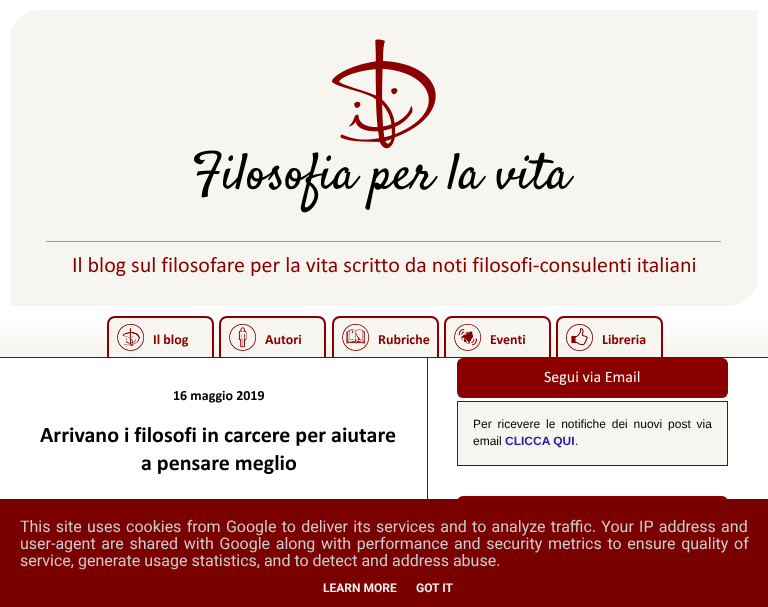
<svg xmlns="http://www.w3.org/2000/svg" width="768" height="607">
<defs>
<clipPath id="clip1"><rect y="316" width="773" height="41"/></clipPath>
</defs>
<rect width="100%" height="100%" fill="#fff"/>
<path d="M40 10h718v266c0 16.5-13.5 30-30 30h-718v-266c0-16.5 13.5-30 30-30z" fill="#f7f5ef"/>
<image x="194" y="39" width="380" height="174" href="media/1.png"/>
<rect x="46" y="241" width="676" height="1" fill="#9f9f9f"/>
<rect x="721" y="241" width="1" height="1" fill="#eee"/>
<text x="72" y="272" style="font-family:Calibri;font-size:22px;fill:#8a0000">Il blog sul filosofare per la vita scritto da noti filosofi-consulenti italiani</text>
<rect y="317" width="768" height="40" fill="#f7f5ef"/>
<image x="0" y="316" width="768" height="30" href="media/2.png"/>
<rect y="357" width="768" height="1" fill="#8a0000"/>
<path d="M115 316h91c4.5 0 8 3.5 8 8v33h-107v-33c0-4.5 3.5-8 8-8z" fill="#f7f5ef"/>
<g clip-path="url(#clip1)">
<path d="M115 317h91c4 0 7 3 7 7v41h-105v-41c0-4 3-7 7-7z" fill="none" stroke="#8a0000" stroke-width="2"/>
</g>
<image x="117" y="324" width="27" height="27" href="media/3.png"/>
<text x="153" y="344" style="font-family:Calibri;font-size:14px;font-weight:bold;fill:#8a0000">Il blog</text>
<path d="M227 316h91c4.5 0 8 3.5 8 8v33h-107v-33c0-4.5 3.5-8 8-8z" fill="#f7f5ef"/>
<g clip-path="url(#clip1)">
<path d="M227 317h91c4 0 7 3 7 7v41h-105v-41c0-4 3-7 7-7z" fill="none" stroke="#8a0000" stroke-width="2"/>
</g>
<image x="229" y="324" width="27" height="27" href="media/4.png"/>
<text x="265" y="344" style="font-family:Calibri;font-size:14px;font-weight:bold;fill:#8a0000">Autori</text>
<path d="M340 316h91c4.5 0 8 3.5 8 8v33h-107v-33c0-4.5 3.5-8 8-8z" fill="#f7f5ef"/>
<g clip-path="url(#clip1)">
<path d="M340 317h91c4 0 7 3 7 7v41h-105v-41c0-4 3-7 7-7z" fill="none" stroke="#8a0000" stroke-width="2"/>
</g>
<image x="342" y="324" width="27" height="27" href="media/5.png"/>
<text x="378" y="344" style="font-family:Calibri;font-size:14px;font-weight:bold;fill:#8a0000">Rubriche</text>
<path d="M452 316h91c4.5 0 8 3.5 8 8v33h-107v-33c0-4.5 3.5-8 8-8z" fill="#f7f5ef"/>
<g clip-path="url(#clip1)">
<path d="M452 317h91c4 0 7 3 7 7v41h-105v-41c0-4 3-7 7-7z" fill="none" stroke="#8a0000" stroke-width="2"/>
</g>
<image x="454" y="324" width="27" height="27" href="media/6.png"/>
<text x="490" y="344" style="font-family:Calibri;font-size:14px;font-weight:bold;fill:#8a0000">Eventi</text>
<path d="M564 316h91c4.5 0 8 3.5 8 8v33h-107v-33c0-4.5 3.5-8 8-8z" fill="#f7f5ef"/>
<g clip-path="url(#clip1)">
<path d="M564 317h91c4 0 7 3 7 7v41h-105v-41c0-4 3-7 7-7z" fill="none" stroke="#8a0000" stroke-width="2"/>
</g>
<image x="566" y="324" width="27" height="27" href="media/7.png"/>
<text x="602" y="344" style="font-family:Calibri;font-size:14px;font-weight:bold;fill:#8a0000">Libreria</text>
<rect x="427" y="358" width="1" height="141" fill="#8a0000"/>
<text x="173" y="400" style="font-family:Calibri;font-size:14px;font-weight:bold;fill:#000">16 maggio 2019</text>
<text x="40" y="442" style="font-family:Calibri;font-size:22px;font-weight:bold;fill:#000">Arrivano i filosofi in carcere per aiutare</text>
<text x="141" y="470" style="font-family:Calibri;font-size:22px;font-weight:bold;fill:#000">a pensare meglio</text>
<rect x="457" y="358" width="271" height="40" rx="6" fill="#8a0000"/>
<text x="544" y="382" style="font-family:Calibri;font-size:16px;fill:#f7f5ef">Segui via Email</text>
<rect x="457.5" y="401.5" width="270" height="64" fill="#f7f5ef" stroke="#8a0000"/>
<text x="473" y="428" word-spacing="2.5" style="font-family:Liberation Sans;font-size:12px;fill:#000">Per ricevere le notifiche dei nuovi post via</text>
<text x="473" y="445" style="font-family:Liberation Sans;font-size:12px;fill:#000">email</text>
<text x="505" y="445" style="font-family:Liberation Sans;font-size:12px;font-weight:bold;fill:#2323a5">CLICCA QUI</text>
<text x="575" y="445" style="font-family:Liberation Sans;font-size:12px;fill:#000">.</text>
<rect x="457" y="496" width="271" height="40" rx="6" fill="#8a0000"/>
<rect y="499" width="768" height="108" fill="#7a0000"/>
<text x="20" y="532" word-spacing="1.3" style="font-family:Roboto;font-size:16px;fill:#ccc">This site uses cookies from Google to deliver its services and to analyze traffic. Your IP address and</text>
<text x="20" y="549" word-spacing="1.75" style="font-family:Roboto;font-size:16px;fill:#ccc">user-agent are shared with Google along with performance and security metrics to ensure quality of</text>
<text x="20" y="566" style="font-family:Roboto;font-size:16px;fill:#ccc">service, generate usage statistics, and to detect and address abuse.</text>
<text x="323" y="592" style="font-family:Roboto;font-size:12px;font-weight:bold;fill:#eee">LEARN MORE</text>
<text x="416" y="592" style="font-family:Roboto;font-size:12px;font-weight:bold;fill:#eee">GOT IT</text>
</svg>
